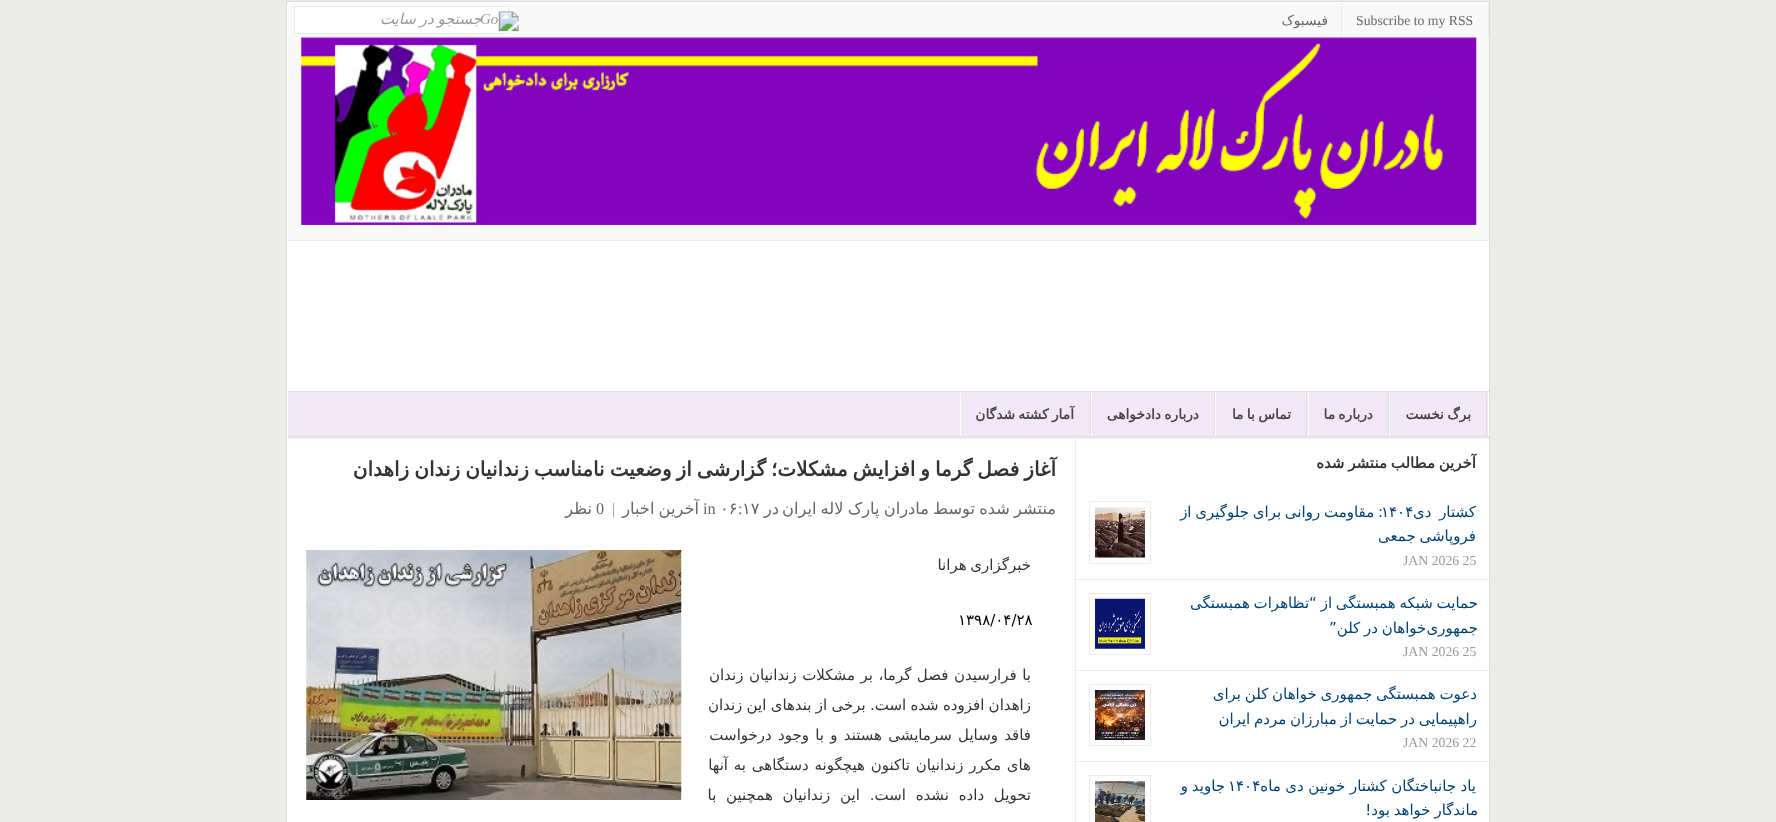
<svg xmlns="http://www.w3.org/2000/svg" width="1776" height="822">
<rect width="100%" height="100%" fill="#ebece7"/>
<rect x="286.5" y="1.5" width="1203" height="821" fill="#fff" stroke="#ddd"/>
<rect x="288" y="3" width="1201" height="237" fill="#f9f9f9"/>
<rect x="288" y="240" width="1201" height="1" fill="#ecede8"/>
<rect x="1488" y="3" width="1" height="35" fill="#ecede8"/>
<text x="1356" y="25" style="font-family:Liberation Serif;font-size:13.75px;fill:#666">Subscribe to my RSS</text>
<rect x="1341" y="3" width="1" height="35" fill="#ecede8"/>
<text x="1328" y="25" style="font-family:DejaVu Sans;font-size:13.75px;direction:rtl;fill:#666">فیسبوک</text>
<image x="301" y="37" width="1176" height="188" href="media/1.png"/>
<rect x="294.5" y="6.5" width="214" height="27" fill="#fff" stroke="#ecede8"/>
<text x="482" y="24" word-spacing="-1" style="font-family:DejaVu Sans;font-size:15px;font-style:italic;direction:rtl;fill:#999">جستجو در سایت</text>
<image x="480" y="11" width="39" height="21" href="media/2.png"/>
<rect x="288" y="392" width="1201" height="46" fill="#f0e9f5"/>
<rect x="288" y="391" width="1201" height="1" fill="#dfdfdf"/>
<rect x="288" y="436" width="1201" height="1" fill="#dfdfdf"/>
<rect x="1488" y="393" width="1" height="43" fill="#fff"/>
<rect x="1486" y="393" width="1" height="43" fill="#dfdfdf"/>
<rect x="1389" y="393" width="1" height="43" fill="#fff"/>
<text x="1471" y="419" word-spacing="-1" style="font-family:DejaVu Sans;font-size:13.75px;font-weight:bold;direction:rtl;fill:#444">برگ نخست</text>
<rect x="1388" y="393" width="1" height="43" fill="#dfdfdf"/>
<rect x="1308" y="393" width="1" height="43" fill="#fff"/>
<text x="1373" y="419" word-spacing="-1" style="font-family:DejaVu Sans;font-size:13.75px;font-weight:bold;direction:rtl;fill:#444">درباره ما</text>
<rect x="1306" y="393" width="1" height="43" fill="#dfdfdf"/>
<rect x="1215" y="393" width="1" height="43" fill="#fff"/>
<text x="1291" y="419" word-spacing="-1" style="font-family:DejaVu Sans;font-size:13.75px;font-weight:bold;direction:rtl;fill:#444">تماس با ما</text>
<rect x="1214" y="393" width="1" height="43" fill="#dfdfdf"/>
<rect x="1091" y="393" width="1" height="43" fill="#fff"/>
<text x="1199" y="419" word-spacing="-1" style="font-family:DejaVu Sans;font-size:13.75px;font-weight:bold;direction:rtl;fill:#444">درباره دادخواهی</text>
<rect x="1090" y="393" width="1" height="43" fill="#dfdfdf"/>
<rect x="960" y="393" width="1" height="43" fill="#fff"/>
<text x="1074" y="419" word-spacing="-1" style="font-family:DejaVu Sans;font-size:13.75px;font-weight:bold;direction:rtl;fill:#444">آمار کشته شدگان</text>
<rect x="288" y="438" width="1201" height="1" fill="#ecede8"/>
<text x="1476" y="468" word-spacing="-1" style="font-family:DejaVu Sans;font-size:15px;font-weight:bold;direction:rtl;fill:#333">آخرین مطالب منتشر شده</text>
<text x="1476" y="517" word-spacing="3" style="font-family:DejaVu Sans;font-size:15px;direction:rtl;fill:#004276">کشتار دی</text>
<text x="1383" y="517" word-spacing="-1" style="font-family:DejaVu Sans;font-size:15px;direction:rtl;fill:#004276">: مقاومت روانی برای جلوگیری از</text>
<text x="1381" y="517" style="font-family:DejaVu Sans;font-size:15px;fill:#004276">۱۴۰۴</text>
<text x="1476" y="541" word-spacing="-1" style="font-family:DejaVu Sans;font-size:15px;direction:rtl;fill:#004276">فروپاشی جمعی</text>
<text x="1403" y="565" style="font-family:Liberation Serif;font-size:13.75px;fill:#999">JAN 2026 25</text>
<rect x="1089.5" y="501.5" width="61" height="62" fill="none" stroke="#ecede8"/>
<image x="1095" y="507" width="50" height="51" href="media/3.png"/>
<rect x="1076" y="579" width="413" height="1" fill="#ecede8"/>
<text x="1478" y="608" word-spacing="-1" style="font-family:DejaVu Sans;font-size:15px;direction:rtl;fill:#004276">حمایت شبکه همبستگی از “تظاهرات همبستگی</text>
<text x="1478" y="633" word-spacing="-1" style="font-family:DejaVu Sans;font-size:15px;direction:rtl;fill:#004276">جمهوری‌خواهان در کلن”</text>
<text x="1403" y="656" style="font-family:Liberation Serif;font-size:13.75px;fill:#999">JAN 2026 25</text>
<rect x="1089.5" y="593.5" width="61" height="61" fill="none" stroke="#ecede8"/>
<image x="1095" y="598" width="50" height="51" href="media/4.png"/>
<rect x="1076" y="670" width="413" height="1" fill="#ecede8"/>
<text x="1477" y="699" word-spacing="-1" style="font-family:DejaVu Sans;font-size:15px;direction:rtl;fill:#004276">دعوت همبستگی جمهوری خواهان کلن برای</text>
<text x="1477" y="724" word-spacing="-1" style="font-family:DejaVu Sans;font-size:15px;direction:rtl;fill:#004276">راهپیمایی در حمایت از مبارزان مردم ایران</text>
<text x="1403" y="747" style="font-family:Liberation Serif;font-size:13.75px;fill:#999">JAN 2026 22</text>
<rect x="1089.5" y="684.5" width="61" height="61" fill="none" stroke="#ecede8"/>
<image x="1095" y="690" width="50" height="50" href="media/5.png"/>
<rect x="1076" y="761" width="413" height="1" fill="#ecede8"/>
<text x="1476" y="791" word-spacing="-0.25" style="font-family:DejaVu Sans;font-size:15px;direction:rtl;fill:#004276">یاد جانباختگان کشتار خونین دی ماه</text>
<text x="1228" y="791" style="font-family:DejaVu Sans;font-size:15px;fill:#004276">۱۴۰۴</text>
<text x="1225" y="791" word-spacing="-1" style="font-family:DejaVu Sans;font-size:15px;direction:rtl;fill:#004276">جاوید و</text>
<text x="1478" y="815" word-spacing="-1" style="font-family:DejaVu Sans;font-size:15px;direction:rtl;fill:#004276">ماندگار خواهد بود!</text>
<rect x="1089.5" y="775.5" width="61" height="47" fill="none" stroke="#ecede8"/>
<image x="1095" y="781" width="50" height="41" href="media/6.png"/>
<rect x="1075" y="439" width="1" height="383" fill="#ecede8"/>
<text x="1056" y="476" word-spacing="-1.4" style="font-family:DejaVu Sans;font-size:20px;font-weight:bold;direction:rtl;fill:#333">آغاز فصل گرما و افزایش مشکلات؛ گزارشی از وضعیت نامناسب زندانیان زندان زاهدان</text>
<text x="1056" y="514" word-spacing="-1" style="font-family:DejaVu Sans;font-size:16.25px;direction:rtl;fill:#666">منتشر شده توسط مادران پارک لاله ایران</text>
<text x="779" y="514" style="font-family:DejaVu Sans;font-size:16.25px;direction:rtl;fill:#666">در</text>
<text x="742" y="514" style="font-family:DejaVu Sans;font-size:16.25px;fill:#666">۱۷</text>
<text x="738" y="514" style="font-family:Liberation Serif;font-size:16.25px;fill:#666">:</text>
<text x="720" y="514" style="font-family:DejaVu Sans;font-size:16.25px;fill:#666">۰۶</text>
<text x="703" y="514" style="font-family:Liberation Serif;font-size:16.25px;fill:#666">in</text>
<text x="699" y="514" word-spacing="-1" style="font-family:DejaVu Sans;font-size:16.25px;direction:rtl;fill:#666">آخرین اخبار</text>
<text x="612" y="514" style="font-family:Liberation Serif;font-size:16.25px;fill:#999">|</text>
<text x="596" y="514" style="font-family:Liberation Serif;font-size:16.25px;fill:#666">0</text>
<text x="592" y="514" style="font-family:DejaVu Sans;font-size:16.25px;direction:rtl;fill:#666">نظر</text>
<text x="1031" y="570" word-spacing="-1" style="font-family:DejaVu Sans;font-size:15px;direction:rtl;fill:#333">خبرگزاری هرانا</text>
<text x="958" y="625" style="font-family:DejaVu Sans;font-size:15px;fill:#000">۱۳۹۸/۰۴/۲۸</text>
<text x="1031" y="680" word-spacing="0.75" style="font-family:DejaVu Sans;font-size:15px;direction:rtl;fill:#333">با فرارسیدن فصل گرما، بر مشکلات زندانیان زندان</text>
<text x="1031" y="710" word-spacing="-0.5" style="font-family:DejaVu Sans;font-size:15px;direction:rtl;fill:#333">زاهدان افزوده شده است. برخی از بندهای این زندان</text>
<text x="1031" y="740" word-spacing="1.5" style="font-family:DejaVu Sans;font-size:15px;direction:rtl;fill:#333">فاقد وسایل سرمایشی هستند و با وجود درخواست</text>
<text x="1031" y="770" word-spacing="1" style="font-family:DejaVu Sans;font-size:15px;direction:rtl;fill:#333">های مکرر زندانیان تاکنون هیچگونه دستگاهی به آنها</text>
<text x="1031" y="800" word-spacing="5" style="font-family:DejaVu Sans;font-size:15px;direction:rtl;fill:#333">تحویل داده نشده است. این زندانیان همچنین با</text>
<image x="306" y="550" width="376" height="250" href="media/7.png"/>
</svg>
